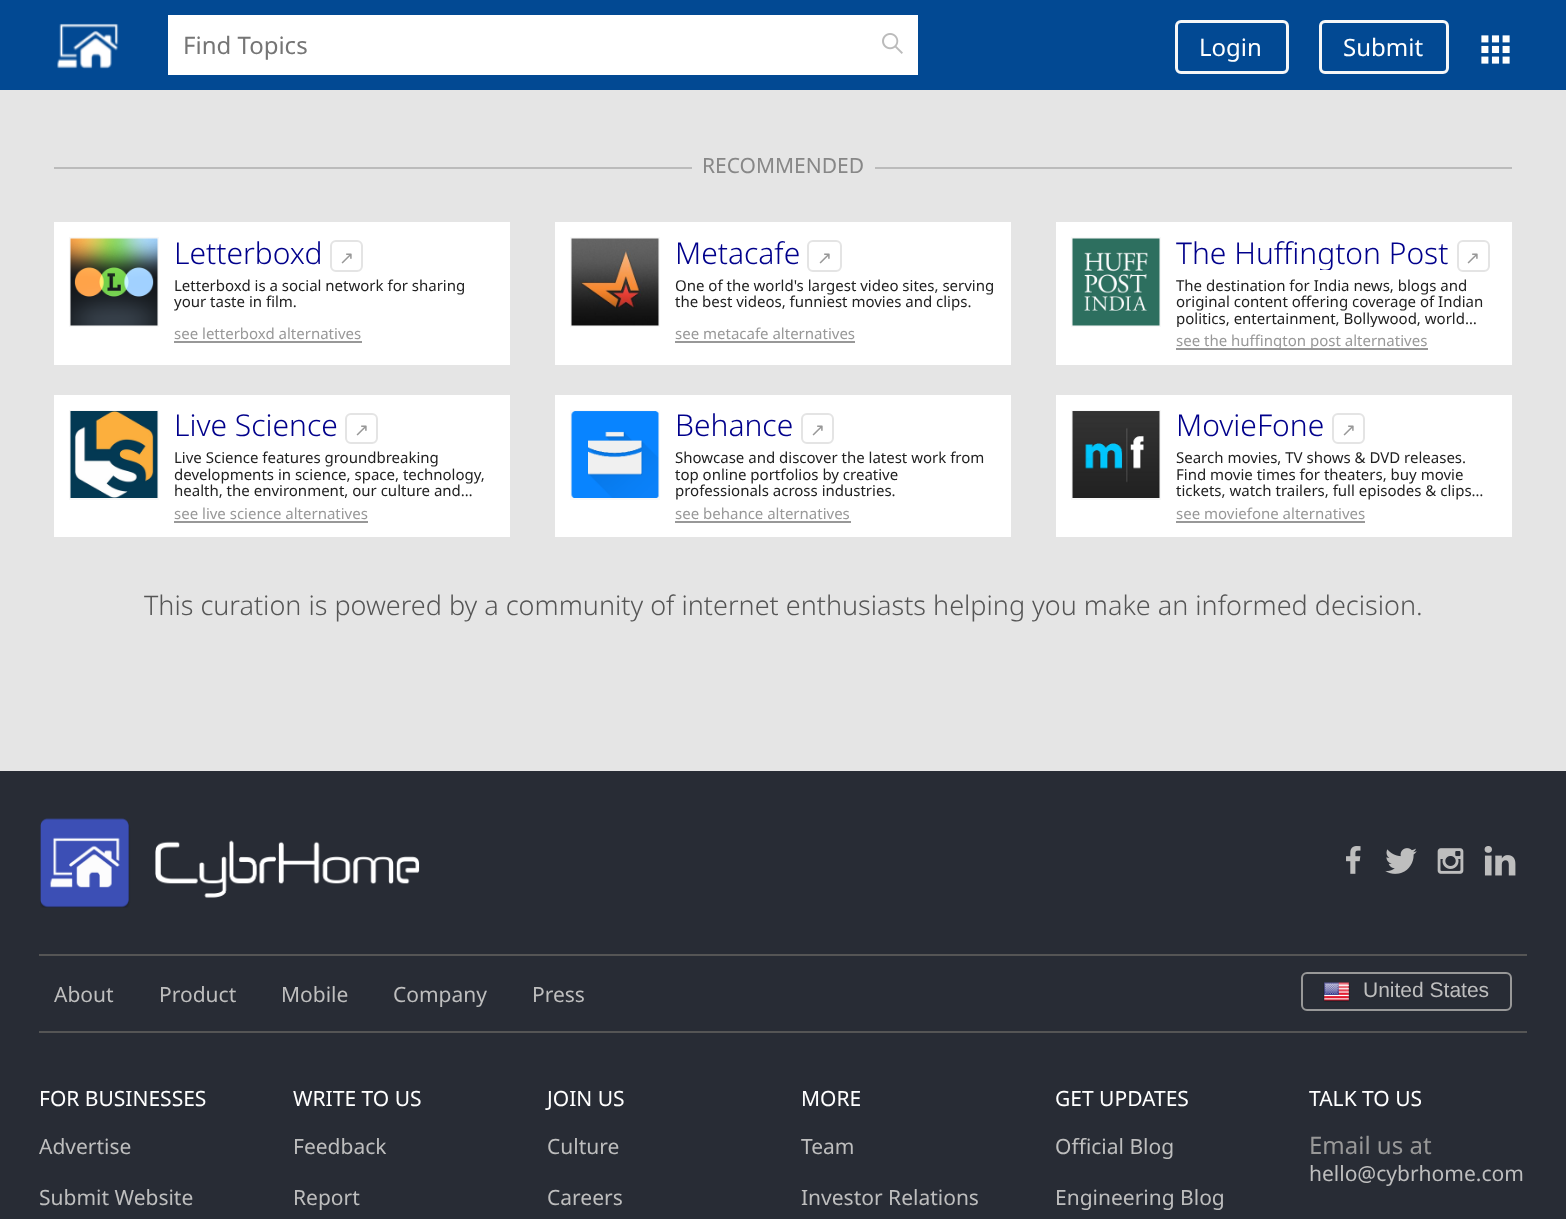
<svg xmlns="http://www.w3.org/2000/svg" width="1566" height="1219">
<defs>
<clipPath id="clip1"><rect x="1176" y="237" width="273" height="33"/></clipPath>
<clipPath id="clip2"><rect x="1176" y="278" width="321" height="49"/></clipPath>
</defs>
<rect width="100%" height="100%" fill="#e5e5e5"/>
<rect width="1566" height="90" fill="#024993"/>
<image x="57" y="23" width="62" height="46" href="media/1.png"/>
<rect x="168" y="15" width="750" height="60" fill="#fff"/>
<text x="183" y="54" style="font-family:Noto Sans;font-size:24px;fill:#757575">Find Topics</text>
<image x="882" y="33" width="21" height="21" href="media/2.png"/>
<rect x="1176.5" y="21.5" width="111" height="51" rx="4.5" fill="none" stroke="#f7f7f7" stroke-width="3"/>
<text x="1199" y="56" style="font-family:Noto Sans;font-size:24px;fill:#fff">Login</text>
<rect x="1320.5" y="21.5" width="127" height="51" rx="4.5" fill="none" stroke="#f7f7f7" stroke-width="3"/>
<text x="1343" y="56" style="font-family:Noto Sans;font-size:24px;fill:#fff">Submit</text>
<image x="1481" y="35" width="29" height="29" href="media/3.png"/>
<rect x="54" y="167" width="638" height="2" fill="#bbb"/>
<text x="702" y="173" style="font-family:Noto Sans;font-size:21px;fill:#878787">RECOMMENDED</text>
<rect x="875" y="167" width="637" height="2" fill="#bbb"/>
<rect x="54" y="222" width="456" height="143" fill="#fff"/>
<rect x="70" y="238" width="88" height="88" fill="none" stroke="#f8f8f8" stroke-width="2"/>
<image x="70" y="238" width="88" height="88" href="media/4.png"/>
<text x="174" y="264" style="font-family:Noto Sans;font-size:30px;font-weight:300;fill:#00008b">Letterboxd</text>
<rect x="331" y="241" width="31" height="30" rx="5" fill="none" stroke="#e4e4e4" stroke-width="2"/>
<text x="339" y="264" style="font-family:DejaVu Sans;font-size:18px;fill:#989898">↗</text>
<text x="174" y="291" style="font-family:Noto Sans;font-size:15px;fill:#212121">Letterboxd is a social network for sharing</text>
<text x="174" y="307" style="font-family:Noto Sans;font-size:15px;fill:#212121">your taste in film.</text>
<text x="174" y="339" style="font-family:Noto Sans;font-size:15px;fill:#989898">see letterboxd alternatives</text>
<rect x="174" y="341" width="188" height="2" fill="#989898"/>
<rect x="555" y="222" width="456" height="143" fill="#fff"/>
<rect x="571" y="238" width="88" height="88" fill="none" stroke="#f8f8f8" stroke-width="2"/>
<image x="571" y="238" width="88" height="88" href="media/5.png"/>
<text x="675" y="264" style="font-family:Noto Sans;font-size:30px;font-weight:300;fill:#00008b">Metacafe</text>
<rect x="808" y="241" width="33" height="30" rx="5" fill="none" stroke="#e4e4e4" stroke-width="2"/>
<text x="817" y="264" style="font-family:DejaVu Sans;font-size:18px;fill:#989898">↗</text>
<text x="675" y="291" style="font-family:Noto Sans;font-size:15px;fill:#212121">One of the world's largest video sites, serving</text>
<text x="675" y="307" style="font-family:Noto Sans;font-size:15px;fill:#212121">the best videos, funniest movies and clips.</text>
<text x="675" y="339" style="font-family:Noto Sans;font-size:15px;fill:#989898">see metacafe alternatives</text>
<rect x="675" y="341" width="180" height="2" fill="#989898"/>
<rect x="1056" y="222" width="456" height="143" fill="#fff"/>
<rect x="1072" y="238" width="88" height="88" fill="none" stroke="#f8f8f8" stroke-width="2"/>
<image x="1072" y="238" width="88" height="88" href="media/6.png"/>
<g clip-path="url(#clip1)">
<text x="1176" y="264" style="font-family:Noto Sans;font-size:30px;font-weight:300;fill:#00008b">The Huffington Post</text>
</g>
<rect x="1458" y="241" width="31" height="30" rx="5" fill="none" stroke="#e4e4e4" stroke-width="2"/>
<text x="1465" y="264" style="font-family:DejaVu Sans;font-size:18px;fill:#989898">↗</text>
<text x="1176" y="291" style="font-family:Noto Sans;font-size:15px;fill:#212121">The destination for India news, blogs and</text>
<text x="1176" y="307" style="font-family:Noto Sans;font-size:15px;fill:#212121">original content offering coverage of Indian</text>
<g clip-path="url(#clip2)">
<text x="1176" y="324" style="font-family:Noto Sans;font-size:15px;fill:#212121">politics, entertainment, Bollywood, world…</text>
</g>
<rect x="1176" y="348" width="252" height="2" fill="#989898"/>
<text x="1176" y="346" style="font-family:Noto Sans;font-size:15px;fill:#989898">see the huffington post alternatives</text>
<rect x="54" y="395" width="456" height="142" fill="#fff"/>
<rect x="70" y="411" width="88" height="88" fill="none" stroke="#f8f8f8" stroke-width="2"/>
<image x="70" y="411" width="88" height="87" href="media/7.png"/>
<text x="174" y="436" style="font-family:Noto Sans;font-size:30px;font-weight:300;fill:#00008b">Live Science</text>
<rect x="346" y="414" width="31" height="29" rx="5" fill="none" stroke="#e4e4e4" stroke-width="2"/>
<text x="354" y="436" style="font-family:DejaVu Sans;font-size:18px;fill:#989898">↗</text>
<text x="174" y="463" style="font-family:Noto Sans;font-size:15px;fill:#212121">Live Science features groundbreaking</text>
<text x="174" y="480" style="font-family:Noto Sans;font-size:15px;fill:#212121">developments in science, space, technology,</text>
<text x="174" y="496" style="font-family:Noto Sans;font-size:15px;fill:#212121">health, the environment, our culture and…</text>
<text x="174" y="519" style="font-family:Noto Sans;font-size:15px;fill:#989898">see live science alternatives</text>
<rect x="174" y="521" width="194" height="2" fill="#989898"/>
<rect x="555" y="395" width="456" height="142" fill="#fff"/>
<rect x="571" y="411" width="88" height="88" fill="none" stroke="#f8f8f8" stroke-width="2"/>
<image x="571" y="411" width="88" height="87" href="media/8.png"/>
<text x="675" y="436" style="font-family:Noto Sans;font-size:30px;font-weight:300;fill:#00008b">Behance</text>
<rect x="802" y="414" width="31" height="29" rx="5" fill="none" stroke="#e4e4e4" stroke-width="2"/>
<text x="810" y="436" style="font-family:DejaVu Sans;font-size:18px;fill:#989898">↗</text>
<text x="675" y="463" style="font-family:Noto Sans;font-size:15px;fill:#212121">Showcase and discover the latest work from</text>
<text x="675" y="480" style="font-family:Noto Sans;font-size:15px;fill:#212121">top online portfolios by creative</text>
<text x="675" y="496" style="font-family:Noto Sans;font-size:15px;fill:#212121">professionals across industries.</text>
<text x="675" y="519" style="font-family:Noto Sans;font-size:15px;fill:#989898">see behance alternatives</text>
<rect x="675" y="521" width="176" height="2" fill="#989898"/>
<rect x="1056" y="395" width="456" height="142" fill="#fff"/>
<rect x="1072" y="411" width="88" height="88" fill="none" stroke="#f8f8f8" stroke-width="2"/>
<image x="1072" y="411" width="88" height="87" href="media/9.png"/>
<text x="1176" y="436" style="font-family:Noto Sans;font-size:30px;font-weight:300;fill:#00008b">MovieFone</text>
<rect x="1333" y="414" width="31" height="29" rx="5" fill="none" stroke="#e4e4e4" stroke-width="2"/>
<text x="1341" y="436" style="font-family:DejaVu Sans;font-size:18px;fill:#989898">↗</text>
<text x="1176" y="463" style="font-family:Noto Sans;font-size:15px;fill:#212121">Search movies, TV shows &amp; DVD releases.</text>
<text x="1176" y="480" style="font-family:Noto Sans;font-size:15px;fill:#212121">Find movie times for theaters, buy movie</text>
<text x="1176" y="496" style="font-family:Noto Sans;font-size:15px;fill:#212121">tickets, watch trailers, full episodes &amp; clips…</text>
<text x="1176" y="519" style="font-family:Noto Sans;font-size:15px;fill:#989898">see moviefone alternatives</text>
<rect x="1176" y="521" width="189" height="2" fill="#989898"/>
<text x="144" y="615" style="font-family:Noto Sans;font-size:27px;font-weight:300;fill:#555">This curation is powered by a community of internet enthusiasts helping you make an informed decision.</text>
<rect y="771" width="1566" height="448" fill="#282c35"/>
<image x="40" y="818" width="380" height="90" href="media/10.png"/>
<image x="1346" y="846" width="15" height="28" href="media/11.png"/>
<image x="1385" y="848" width="32" height="26" href="media/12.png"/>
<image x="1437" y="848" width="27" height="26" href="media/13.png"/>
<image x="1484" y="846" width="32" height="30" href="media/14.png"/>
<rect x="39" y="954" width="1488" height="2" fill="#555"/>
<text x="54" y="1002" style="font-family:Noto Sans;font-size:21px;fill:#bebebe">About</text>
<text x="159" y="1002" style="font-family:Noto Sans;font-size:21px;fill:#bebebe">Product</text>
<text x="281" y="1002" style="font-family:Noto Sans;font-size:21px;fill:#bebebe">Mobile</text>
<text x="393" y="1002" style="font-family:Noto Sans;font-size:21px;fill:#bebebe">Company</text>
<text x="532" y="1002" style="font-family:Noto Sans;font-size:21px;fill:#bebebe">Press</text>
<rect x="1302" y="973" width="209" height="37" rx="5" fill="none" stroke="#989898" stroke-width="2"/>
<image x="1323" y="982" width="27" height="20" href="media/15.png"/>
<text x="1363" y="997" style="font-family:Liberation Sans;font-size:21px;fill:#bebebe">United States</text>
<rect x="39" y="1031" width="1488" height="2" fill="#555"/>
<text x="39" y="1106" style="font-family:Noto Sans;font-size:21px;fill:#fff">FOR BUSINESSES</text>
<text x="39" y="1154" style="font-family:Noto Sans;font-size:21px;fill:#bebebe">Advertise</text>
<text x="39" y="1205" style="font-family:Noto Sans;font-size:21px;fill:#bebebe">Submit Website</text>
<text x="293" y="1106" style="font-family:Noto Sans;font-size:21px;fill:#fff">WRITE TO US</text>
<text x="293" y="1154" style="font-family:Noto Sans;font-size:21px;fill:#bebebe">Feedback</text>
<text x="293" y="1205" style="font-family:Noto Sans;font-size:21px;fill:#bebebe">Report</text>
<text x="547" y="1106" style="font-family:Noto Sans;font-size:21px;fill:#fff">JOIN US</text>
<text x="547" y="1154" style="font-family:Noto Sans;font-size:21px;fill:#bebebe">Culture</text>
<text x="547" y="1205" style="font-family:Noto Sans;font-size:21px;fill:#bebebe">Careers</text>
<text x="801" y="1106" style="font-family:Noto Sans;font-size:21px;fill:#fff">MORE</text>
<text x="801" y="1154" style="font-family:Noto Sans;font-size:21px;fill:#bebebe">Team</text>
<text x="801" y="1205" style="font-family:Noto Sans;font-size:21px;fill:#bebebe">Investor Relations</text>
<text x="1055" y="1106" style="font-family:Noto Sans;font-size:21px;fill:#fff">GET UPDATES</text>
<text x="1055" y="1154" style="font-family:Noto Sans;font-size:21px;fill:#bebebe">Official Blog</text>
<text x="1055" y="1205" style="font-family:Noto Sans;font-size:21px;fill:#bebebe">Engineering Blog</text>
<text x="1309" y="1106" style="font-family:Noto Sans;font-size:21px;fill:#fff">TALK TO US</text>
<text x="1309" y="1154" style="font-family:Noto Sans;font-size:24px;fill:#989898">Email us at</text>
<text x="1309" y="1181" style="font-family:Noto Sans;font-size:21px;fill:#bebebe">hello@cybrhome.com</text>
</svg>
